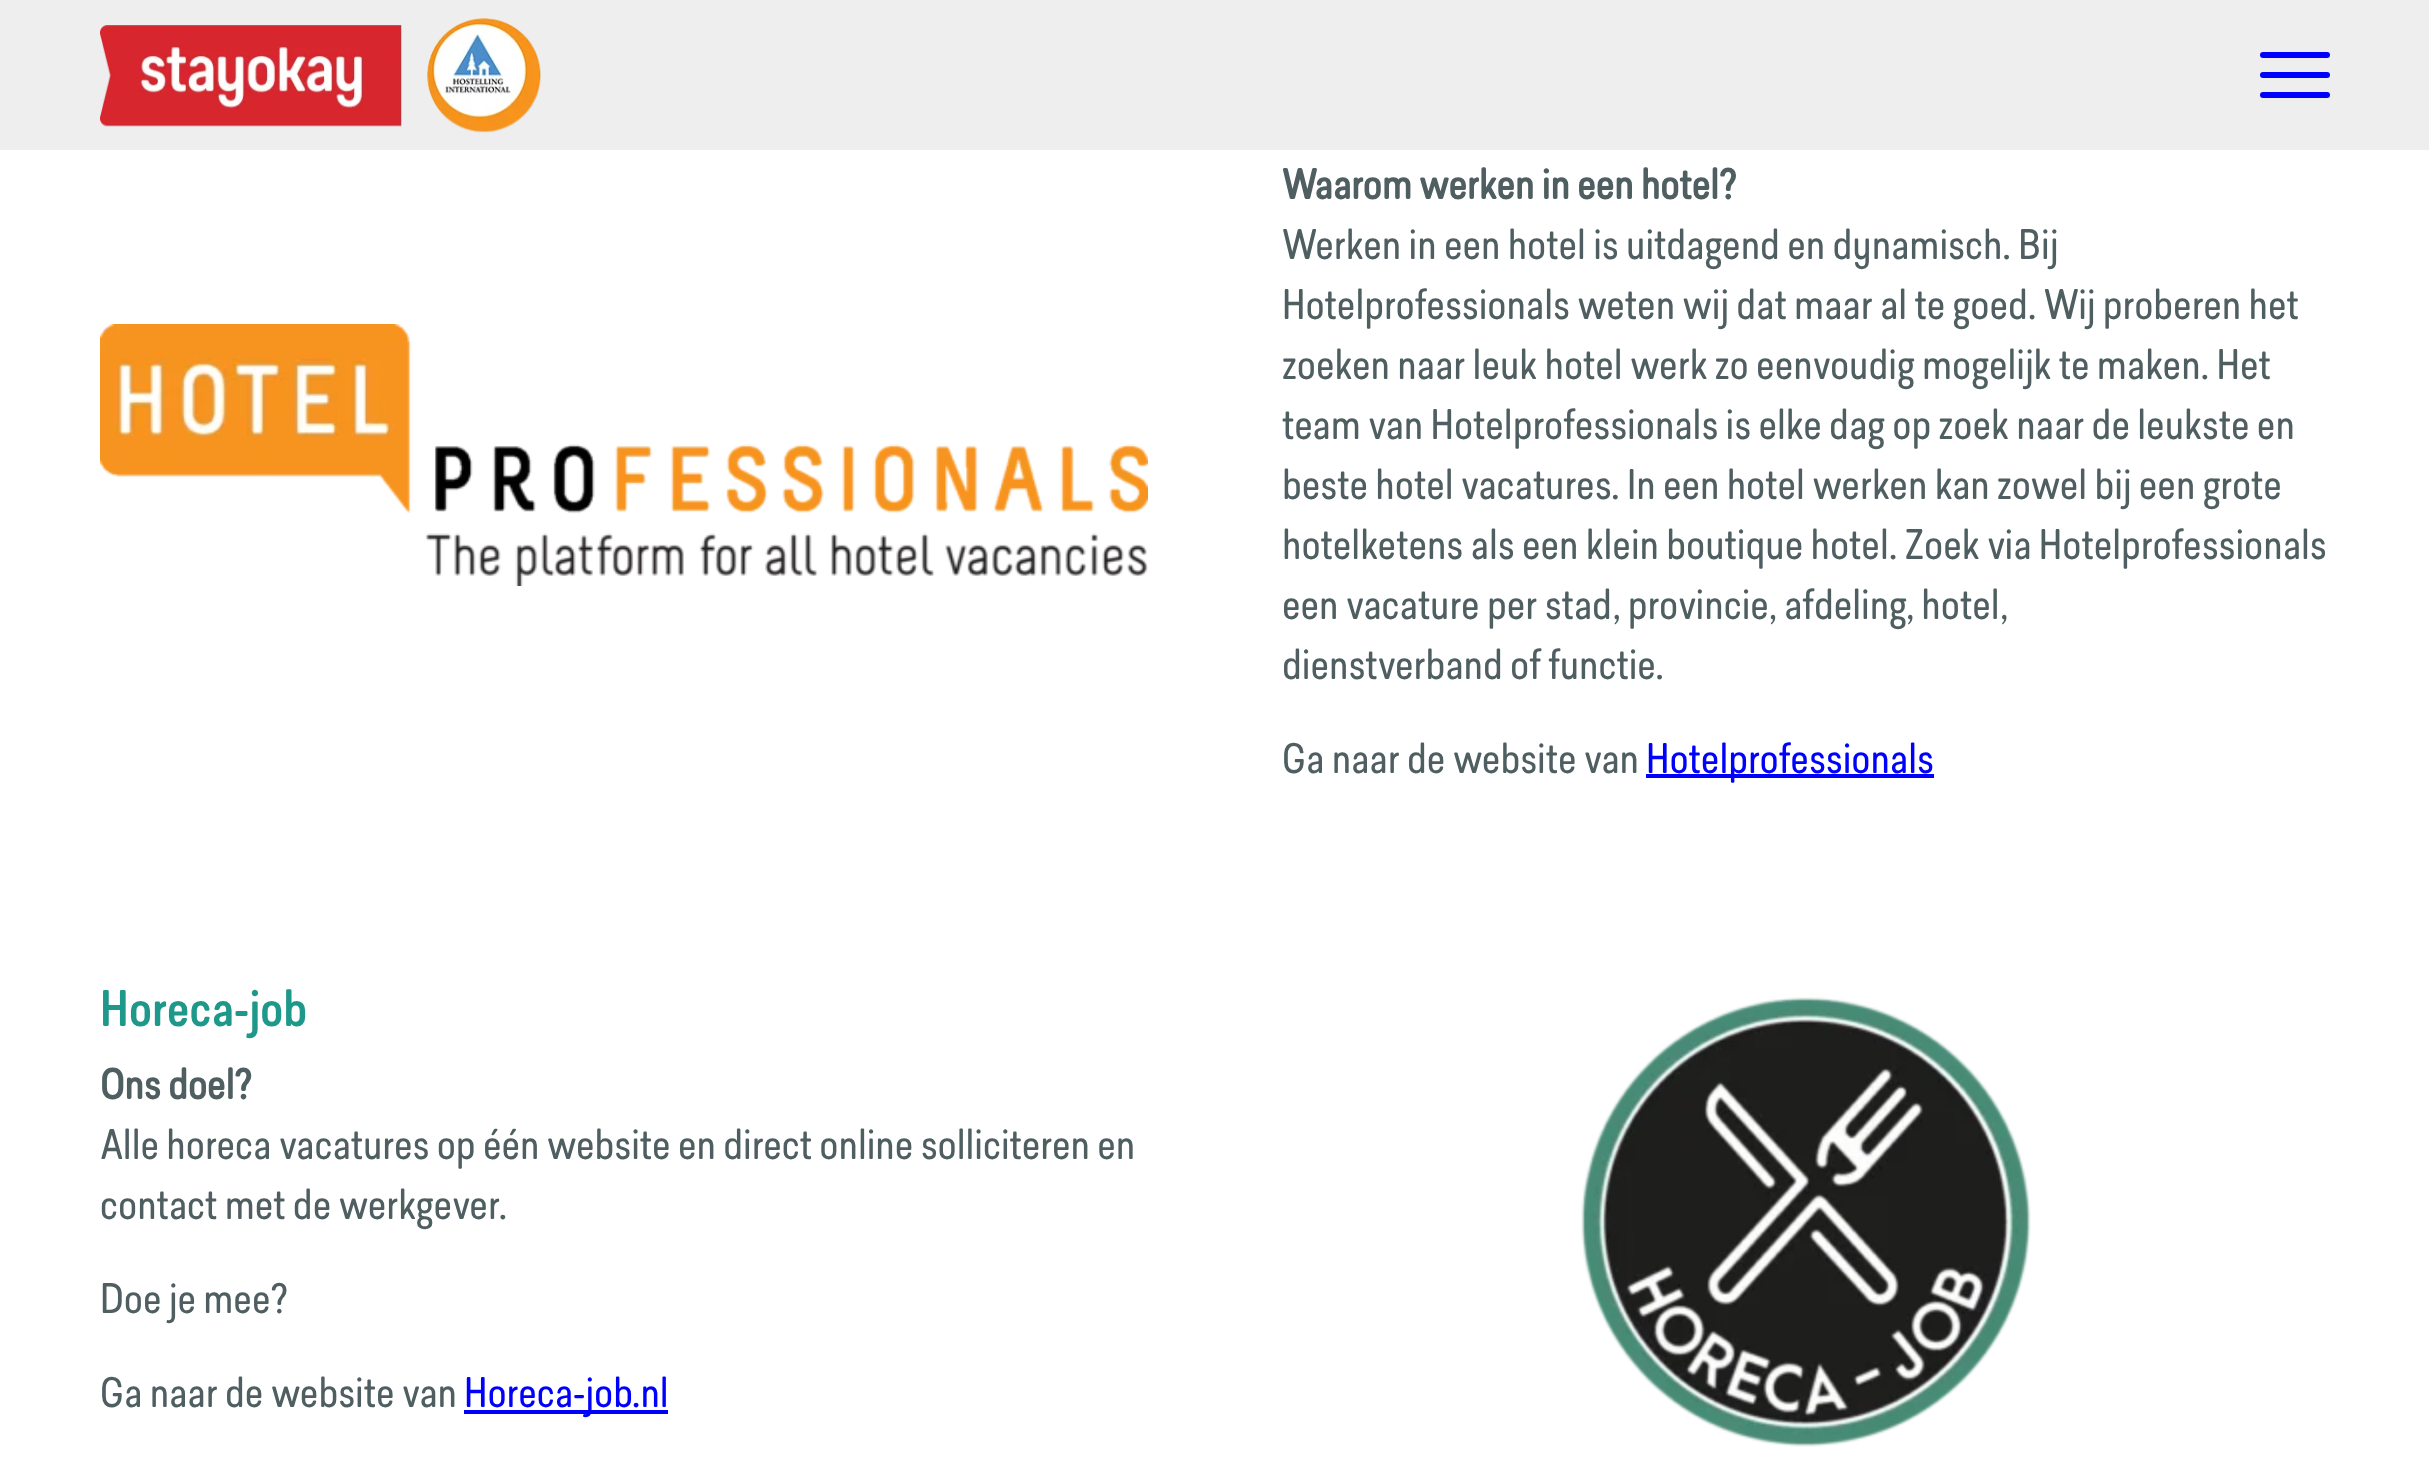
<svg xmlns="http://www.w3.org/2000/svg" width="2429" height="1457">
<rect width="100%" height="100%" fill="#fff"/>
<rect width="2429" height="150" fill="#eee"/>
<image x="100" y="18" width="441" height="115" href="media/1.png"/>
<rect x="2260" y="72" width="70" height="6" rx="3" fill="#00f"/>
<rect x="2260" y="52" width="70" height="6" rx="3" fill="#00f"/>
<rect x="2260" y="92" width="70" height="6" rx="3" fill="#00f"/>
<image x="100" y="324" width="1048" height="262" href="media/2.png"/>
<text x="1282" y="199" style="font-family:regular;font-size:40px;font-weight:bold;fill:#4f5f61">Waarom werken in een hotel?</text>
<text x="1282" y="259" style="font-family:regular;font-size:40px;fill:#4f5f61">Werken in een hotel is uitdagend en dynamisch. Bij</text>
<text x="1282" y="319" style="font-family:regular;font-size:40px;fill:#4f5f61">Hotelprofessionals weten wij dat maar al te goed. Wij proberen het</text>
<text x="1282" y="379" style="font-family:regular;font-size:40px;fill:#4f5f61">zoeken naar leuk hotel werk zo eenvoudig mogelijk te maken. Het</text>
<text x="1282" y="439" style="font-family:regular;font-size:40px;fill:#4f5f61">team van Hotelprofessionals is elke dag op zoek naar de leukste en</text>
<text x="1282" y="499" style="font-family:regular;font-size:40px;fill:#4f5f61">beste hotel vacatures. In een hotel werken kan zowel bij een grote</text>
<text x="1282" y="559" style="font-family:regular;font-size:40px;fill:#4f5f61">hotelketens als een klein boutique hotel. Zoek via Hotelprofessionals</text>
<text x="1282" y="619" style="font-family:regular;font-size:40px;fill:#4f5f61">een vacature per stad, provincie, afdeling, hotel,</text>
<text x="1282" y="679" style="font-family:regular;font-size:40px;fill:#4f5f61">dienstverband of functie.</text>
<text x="1282" y="773" style="font-family:regular;font-size:40px;fill:#4f5f61">Ga naar de website van</text>
<rect x="1646" y="774" width="288" height="4" fill="#00f"/>
<text x="1646" y="773" style="font-family:regular;font-size:40px;fill:#00f">Hotelprofessionals</text>
<text x="100" y="1026" style="font-family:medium;font-size:48px;font-weight:500;fill:#1e988a">Horeca-job</text>
<text x="100" y="1099" style="font-family:regular;font-size:40px;font-weight:bold;fill:#4f5f61">Ons doel?</text>
<text x="100" y="1159" style="font-family:regular;font-size:40px;fill:#4f5f61">Alle horeca vacatures op één website en direct online solliciteren en</text>
<text x="100" y="1219" style="font-family:regular;font-size:40px;fill:#4f5f61">contact met de werkgever.</text>
<text x="100" y="1313" style="font-family:regular;font-size:40px;fill:#4f5f61">Doe je mee?</text>
<text x="100" y="1407" style="font-family:regular;font-size:40px;fill:#4f5f61">Ga naar de website van</text>
<rect x="464" y="1410" width="204" height="4" fill="#00f"/>
<text x="464" y="1407" style="font-family:regular;font-size:40px;fill:#00f">Horeca-job.nl</text>
<image x="1581" y="997" width="450" height="450" href="media/3.png"/>
</svg>
